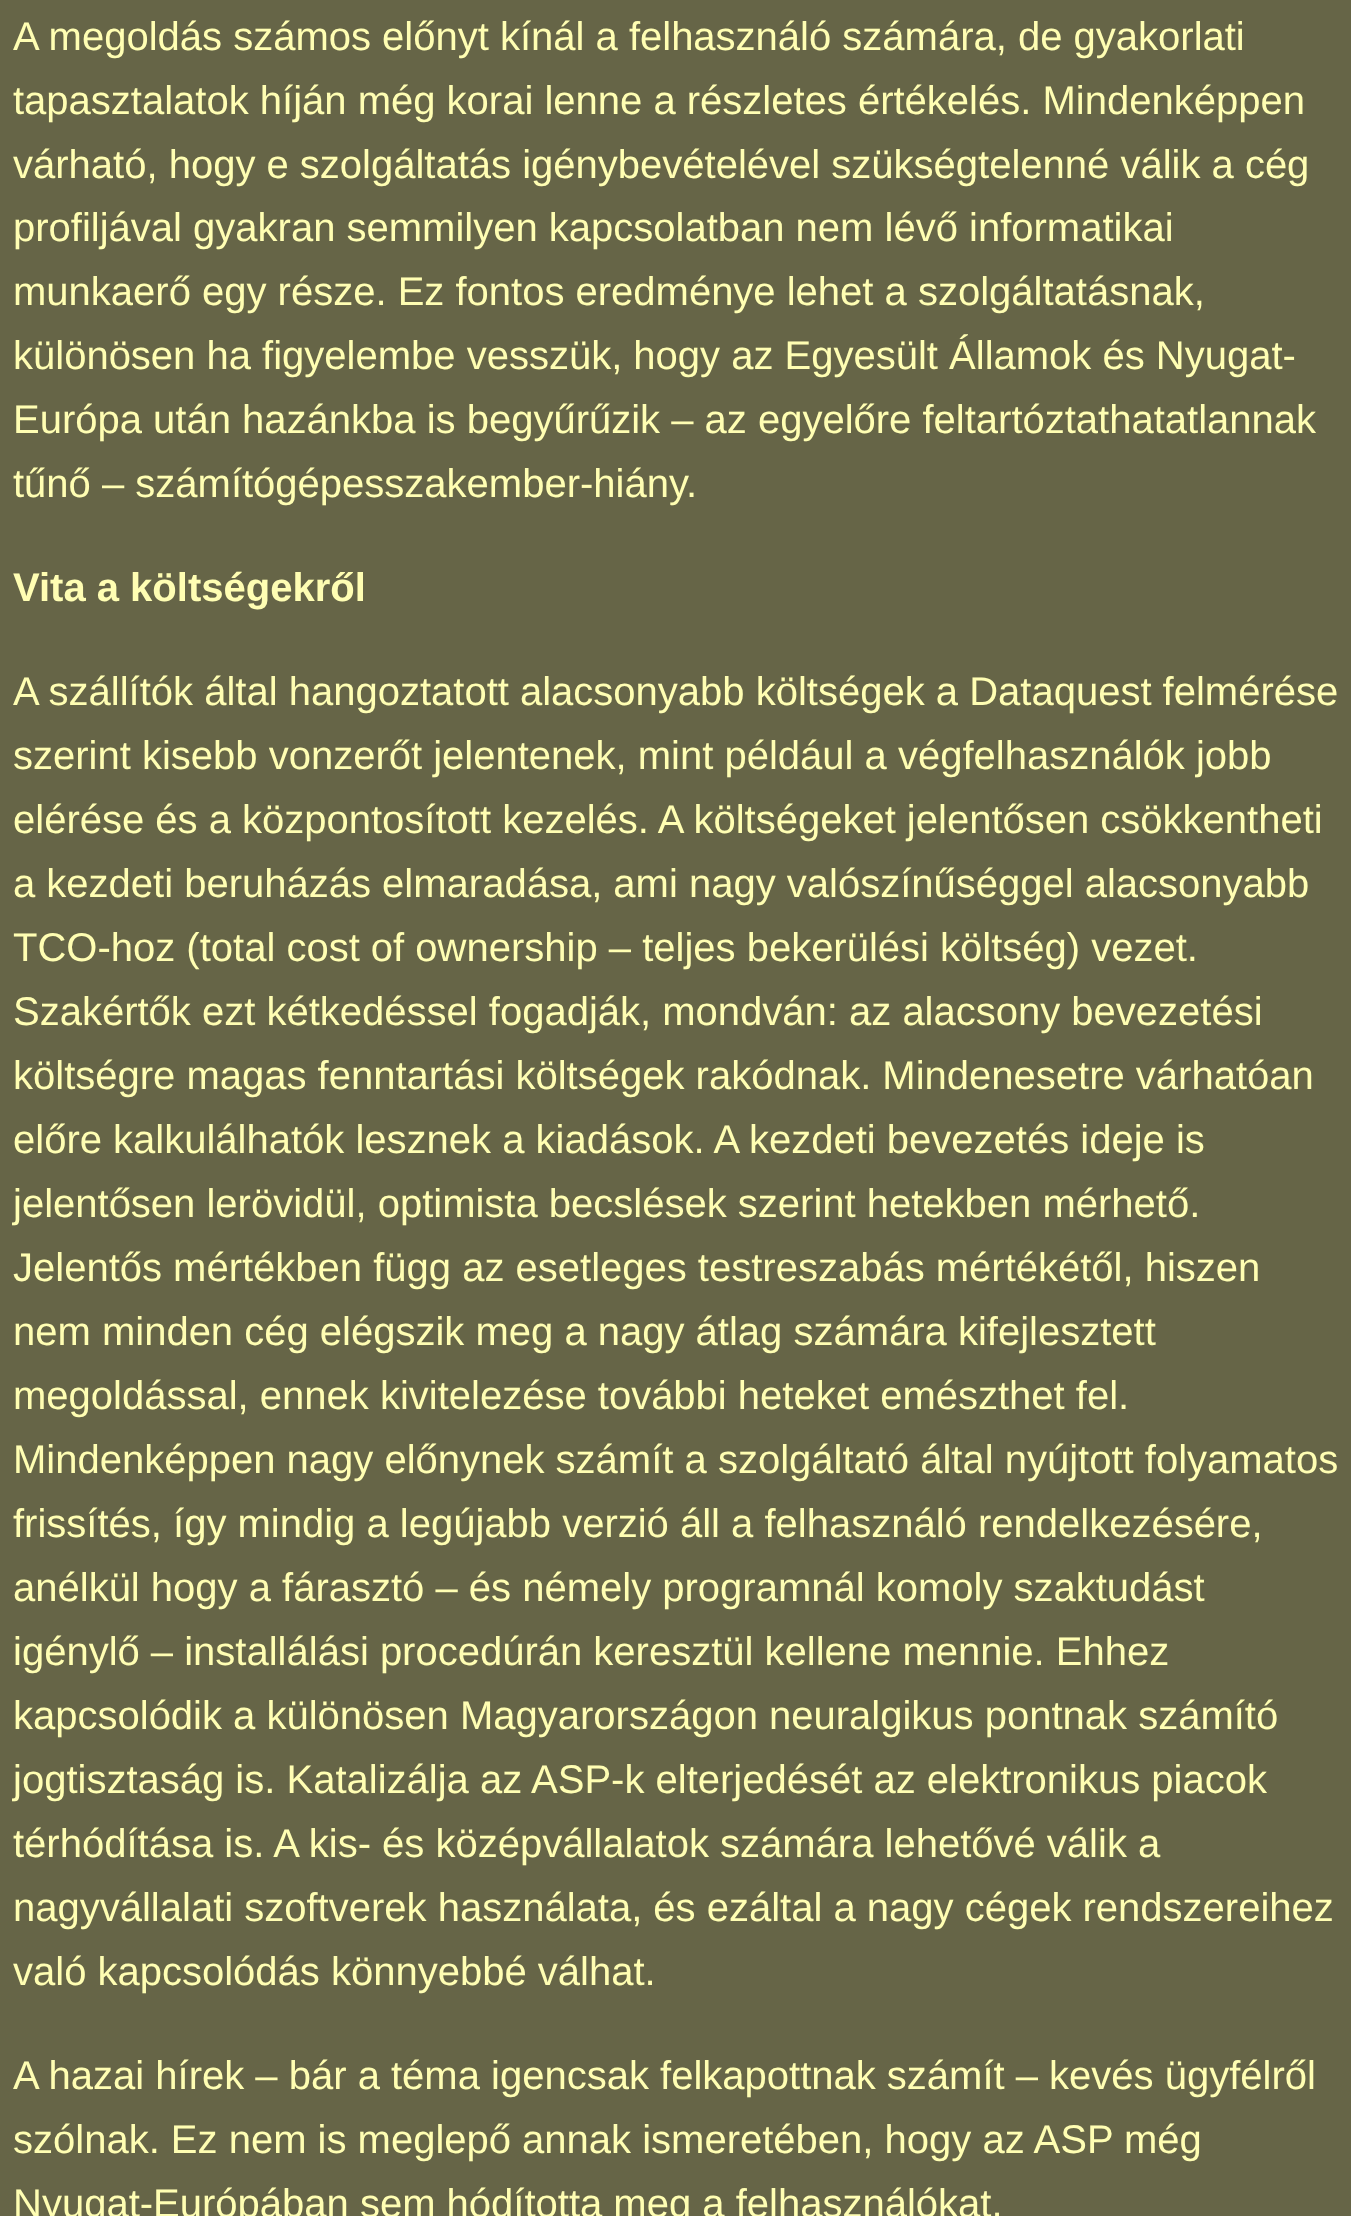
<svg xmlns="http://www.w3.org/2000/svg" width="1351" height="2216">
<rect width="100%" height="100%" fill="#666547"/>
<text x="13" y="50" style="font-family:Liberation Sans;font-size:40px;fill:#fffeb3">A megoldás számos előnyt kínál a felhasználó számára, de gyakorlati</text>
<text x="13" y="114" style="font-family:Liberation Sans;font-size:40px;fill:#fffeb3">tapasztalatok híján még korai lenne a részletes értékelés. Mindenképpen</text>
<text x="13" y="178" style="font-family:Liberation Sans;font-size:40px;fill:#fffeb3">várható, hogy e szolgáltatás igénybevételével szükségtelenné válik a cég</text>
<text x="13" y="241" style="font-family:Liberation Sans;font-size:40px;fill:#fffeb3">profiljával gyakran semmilyen kapcsolatban nem lévő informatikai</text>
<text x="13" y="305" style="font-family:Liberation Sans;font-size:40px;fill:#fffeb3">munkaerő egy része. Ez fontos eredménye lehet a szolgáltatásnak,</text>
<text x="13" y="369" style="font-family:Liberation Sans;font-size:40px;fill:#fffeb3">különösen ha figyelembe vesszük, hogy az Egyesült Államok és Nyugat-</text>
<text x="13" y="433" style="font-family:Liberation Sans;font-size:40px;fill:#fffeb3">Európa után hazánkba is begyűrűzik – az egyelőre feltartóztathatatlannak</text>
<text x="13" y="497" style="font-family:Liberation Sans;font-size:40px;fill:#fffeb3">tűnő – számítógépesszakember-hiány.</text>
<text x="13" y="601" style="font-family:Liberation Sans;font-size:40px;font-weight:bold;fill:#fffeb3">Vita a költségekről</text>
<text x="13" y="705" style="font-family:Liberation Sans;font-size:40px;fill:#fffeb3">A szállítók által hangoztatott alacsonyabb költségek a Dataquest felmérése</text>
<text x="13" y="769" style="font-family:Liberation Sans;font-size:40px;fill:#fffeb3">szerint kisebb vonzerőt jelentenek, mint például a végfelhasználók jobb</text>
<text x="13" y="833" style="font-family:Liberation Sans;font-size:40px;fill:#fffeb3">elérése és a központosított kezelés. A költségeket jelentősen csökkentheti</text>
<text x="13" y="897" style="font-family:Liberation Sans;font-size:40px;fill:#fffeb3">a kezdeti beruházás elmaradása, ami nagy valószínűséggel alacsonyabb</text>
<text x="13" y="961" style="font-family:Liberation Sans;font-size:40px;fill:#fffeb3">TCO-hoz (total cost of ownership – teljes bekerülési költség) vezet.</text>
<text x="13" y="1025" style="font-family:Liberation Sans;font-size:40px;fill:#fffeb3">Szakértők ezt kétkedéssel fogadják, mondván: az alacsony bevezetési</text>
<text x="13" y="1089" style="font-family:Liberation Sans;font-size:40px;fill:#fffeb3">költségre magas fenntartási költségek rakódnak. Mindenesetre várhatóan</text>
<text x="13" y="1153" style="font-family:Liberation Sans;font-size:40px;fill:#fffeb3">előre kalkulálhatók lesznek a kiadások. A kezdeti bevezetés ideje is</text>
<text x="13" y="1217" style="font-family:Liberation Sans;font-size:40px;fill:#fffeb3">jelentősen lerövidül, optimista becslések szerint hetekben mérhető.</text>
<text x="13" y="1281" style="font-family:Liberation Sans;font-size:40px;fill:#fffeb3">Jelentős mértékben függ az esetleges testreszabás mértékétől, hiszen</text>
<text x="13" y="1345" style="font-family:Liberation Sans;font-size:40px;fill:#fffeb3">nem minden cég elégszik meg a nagy átlag számára kifejlesztett</text>
<text x="13" y="1409" style="font-family:Liberation Sans;font-size:40px;fill:#fffeb3">megoldással, ennek kivitelezése további heteket emészthet fel.</text>
<text x="13" y="1473" style="font-family:Liberation Sans;font-size:40px;fill:#fffeb3">Mindenképpen nagy előnynek számít a szolgáltató által nyújtott folyamatos</text>
<text x="13" y="1537" style="font-family:Liberation Sans;font-size:40px;fill:#fffeb3">frissítés, így mindig a legújabb verzió áll a felhasználó rendelkezésére,</text>
<text x="13" y="1601" style="font-family:Liberation Sans;font-size:40px;fill:#fffeb3">anélkül hogy a fárasztó – és némely programnál komoly szaktudást</text>
<text x="13" y="1665" style="font-family:Liberation Sans;font-size:40px;fill:#fffeb3">igénylő – installálási procedúrán keresztül kellene mennie. Ehhez</text>
<text x="13" y="1729" style="font-family:Liberation Sans;font-size:40px;fill:#fffeb3">kapcsolódik a különösen Magyarországon neuralgikus pontnak számító</text>
<text x="13" y="1793" style="font-family:Liberation Sans;font-size:40px;fill:#fffeb3">jogtisztaság is. Katalizálja az ASP-k elterjedését az elektronikus piacok</text>
<text x="13" y="1857" style="font-family:Liberation Sans;font-size:40px;fill:#fffeb3">térhódítása is. A kis- és középvállalatok számára lehetővé válik a</text>
<text x="13" y="1921" style="font-family:Liberation Sans;font-size:40px;fill:#fffeb3">nagyvállalati szoftverek használata, és ezáltal a nagy cégek rendszereihez</text>
<text x="13" y="1985" style="font-family:Liberation Sans;font-size:40px;fill:#fffeb3">való kapcsolódás könnyebbé válhat.</text>
<text x="13" y="2089" style="font-family:Liberation Sans;font-size:40px;fill:#fffeb3">A hazai hírek – bár a téma igencsak felkapottnak számít – kevés ügyfélről</text>
<text x="13" y="2153" style="font-family:Liberation Sans;font-size:40px;fill:#fffeb3">szólnak. Ez nem is meglepő annak ismeretében, hogy az ASP még</text>
<text x="13" y="2217" style="font-family:Liberation Sans;font-size:40px;fill:#fffeb3">Nyugat-Európában sem hódította meg a felhasználókat.</text>
</svg>
